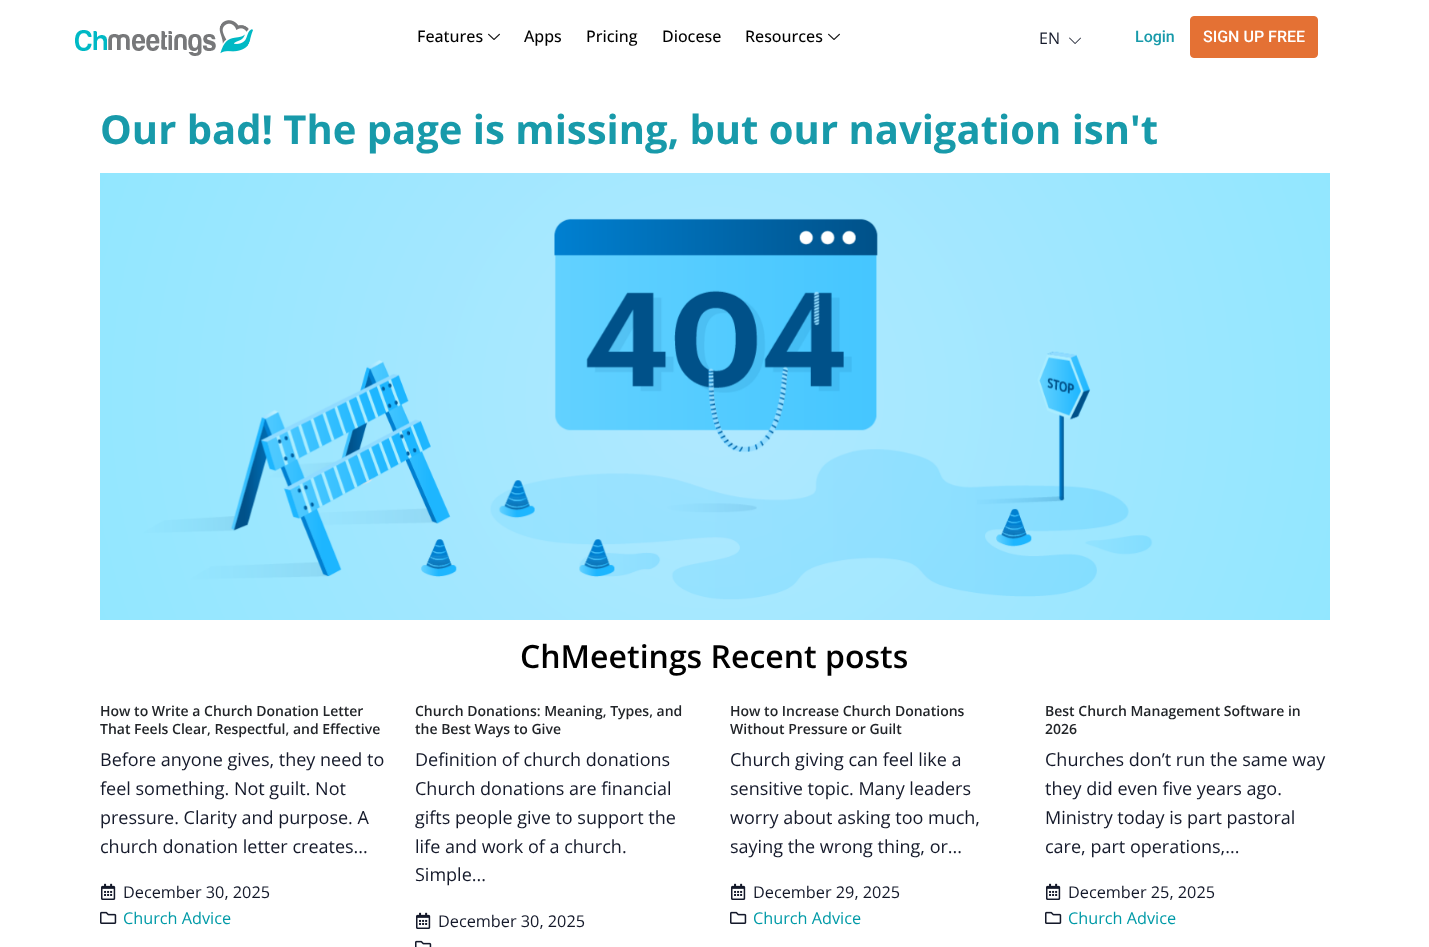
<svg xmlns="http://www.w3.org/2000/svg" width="1429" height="947">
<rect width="100%" height="100%" fill="#fff"/>
<image x="75" y="20" width="178" height="36" href="media/1.png"/>
<text x="417" y="42" style="font-family:Open Sans;font-size:16px;font-weight:500;fill:#000">Features</text>
<image x="488" y="33" width="12" height="7" href="media/2.png"/>
<text x="524" y="42" style="font-family:Open Sans;font-size:16px;font-weight:500;fill:#000">Apps</text>
<text x="586" y="42" style="font-family:Open Sans;font-size:16px;font-weight:500;fill:#000">Pricing</text>
<text x="662" y="42" style="font-family:Open Sans;font-size:16px;font-weight:500;fill:#000">Diocese</text>
<text x="745" y="42" style="font-family:Open Sans;font-size:16px;font-weight:500;fill:#000">Resources</text>
<image x="828" y="33" width="12" height="7" href="media/2.png"/>
<text x="1039" y="44" style="font-family:Open Sans;font-size:16px;fill:#14192a">EN</text>
<image x="1069" y="37" width="12" height="7" href="media/3.png"/>
<text x="1135" y="42" style="font-family:Roboto;font-size:16px;font-weight:500;fill:#189aaa">Login</text>
<rect x="1190.5" y="16.5" width="127" height="41" rx="3.5" fill="#e47134" stroke="#e47134"/>
<text x="1203" y="42" style="font-family:Roboto;font-size:16px;font-weight:500;fill:#fff">SIGN UP FREE</text>
<text x="100" y="144" style="font-family:Open Sans;font-size:40px;font-weight:bold;fill:#189aaa">Our bad! The page is missing, but our navigation isn't</text>
<image x="100" y="173" width="1230" height="447" href="media/4.png"/>
<text x="520" y="668" style="font-family:Open Sans;font-size:32px;font-weight:600;fill:#000">ChMeetings Recent posts</text>
<text x="100" y="716" style="font-family:Open Sans;font-size:14px;font-weight:600;fill:#222529">How to Write a Church Donation Letter</text>
<text x="100" y="734" style="font-family:Open Sans;font-size:14px;font-weight:600;fill:#222529">That Feels Clear, Respectful, and Effective</text>
<text x="100" y="766" style="font-family:Open Sans;font-size:18px;fill:#14192a">Before anyone gives, they need to</text>
<text x="100" y="795" style="font-family:Open Sans;font-size:18px;fill:#14192a">feel something. Not guilt. Not</text>
<text x="100" y="824" style="font-family:Open Sans;font-size:18px;fill:#14192a">pressure. Clarity and purpose. A</text>
<text x="100" y="853" style="font-family:Open Sans;font-size:18px;fill:#14192a">church donation letter creates...</text>
<image x="101" y="883" width="15" height="17" href="media/5.png"/>
<text x="123" y="898" style="font-family:Open Sans;font-size:16.25px;fill:#14192a">December 30, 2025</text>
<image x="100" y="911" width="17" height="13" href="media/6.png"/>
<text x="123" y="924" style="font-family:Open Sans;font-size:16.25px;fill:#009aa7">Church Advice</text>
<text x="415" y="716" style="font-family:Open Sans;font-size:14px;font-weight:600;fill:#222529">Church Donations: Meaning, Types, and</text>
<text x="415" y="734" style="font-family:Open Sans;font-size:14px;font-weight:600;fill:#222529">the Best Ways to Give</text>
<text x="415" y="766" style="font-family:Open Sans;font-size:18px;fill:#14192a">Definition of church donations</text>
<text x="415" y="795" style="font-family:Open Sans;font-size:18px;fill:#14192a">Church donations are financial</text>
<text x="415" y="824" style="font-family:Open Sans;font-size:18px;fill:#14192a">gifts people give to support the</text>
<text x="415" y="853" style="font-family:Open Sans;font-size:18px;fill:#14192a">life and work of a church.</text>
<text x="415" y="881" style="font-family:Open Sans;font-size:18px;fill:#14192a">Simple...</text>
<image x="416" y="912" width="15" height="17" href="media/5.png"/>
<text x="438" y="927" style="font-family:Open Sans;font-size:16.25px;fill:#14192a">December 30, 2025</text>
<image x="415" y="940" width="17" height="7" href="media/7.png"/>
<text x="730" y="716" style="font-family:Open Sans;font-size:14px;font-weight:600;fill:#222529">How to Increase Church Donations</text>
<text x="730" y="734" style="font-family:Open Sans;font-size:14px;font-weight:600;fill:#222529">Without Pressure or Guilt</text>
<text x="730" y="766" style="font-family:Open Sans;font-size:18px;fill:#14192a">Church giving can feel like a</text>
<text x="730" y="795" style="font-family:Open Sans;font-size:18px;fill:#14192a">sensitive topic. Many leaders</text>
<text x="730" y="824" style="font-family:Open Sans;font-size:18px;fill:#14192a">worry about asking too much,</text>
<text x="730" y="853" style="font-family:Open Sans;font-size:18px;fill:#14192a">saying the wrong thing, or...</text>
<image x="731" y="883" width="15" height="17" href="media/5.png"/>
<text x="753" y="898" style="font-family:Open Sans;font-size:16.25px;fill:#14192a">December 29, 2025</text>
<image x="730" y="911" width="17" height="13" href="media/6.png"/>
<text x="753" y="924" style="font-family:Open Sans;font-size:16.25px;fill:#009aa7">Church Advice</text>
<text x="1045" y="716" style="font-family:Open Sans;font-size:14px;font-weight:600;fill:#222529">Best Church Management Software in</text>
<text x="1045" y="734" style="font-family:Open Sans;font-size:14px;font-weight:600;fill:#222529">2026</text>
<text x="1045" y="766" style="font-family:Open Sans;font-size:18px;fill:#14192a">Churches don’t run the same way</text>
<text x="1045" y="795" style="font-family:Open Sans;font-size:18px;fill:#14192a">they did even five years ago.</text>
<text x="1045" y="824" style="font-family:Open Sans;font-size:18px;fill:#14192a">Ministry today is part pastoral</text>
<text x="1045" y="853" style="font-family:Open Sans;font-size:18px;fill:#14192a">care, part operations,...</text>
<image x="1046" y="883" width="15" height="17" href="media/5.png"/>
<text x="1068" y="898" style="font-family:Open Sans;font-size:16.25px;fill:#14192a">December 25, 2025</text>
<image x="1045" y="911" width="17" height="13" href="media/6.png"/>
<text x="1068" y="924" style="font-family:Open Sans;font-size:16.25px;fill:#009aa7">Church Advice</text>
</svg>
